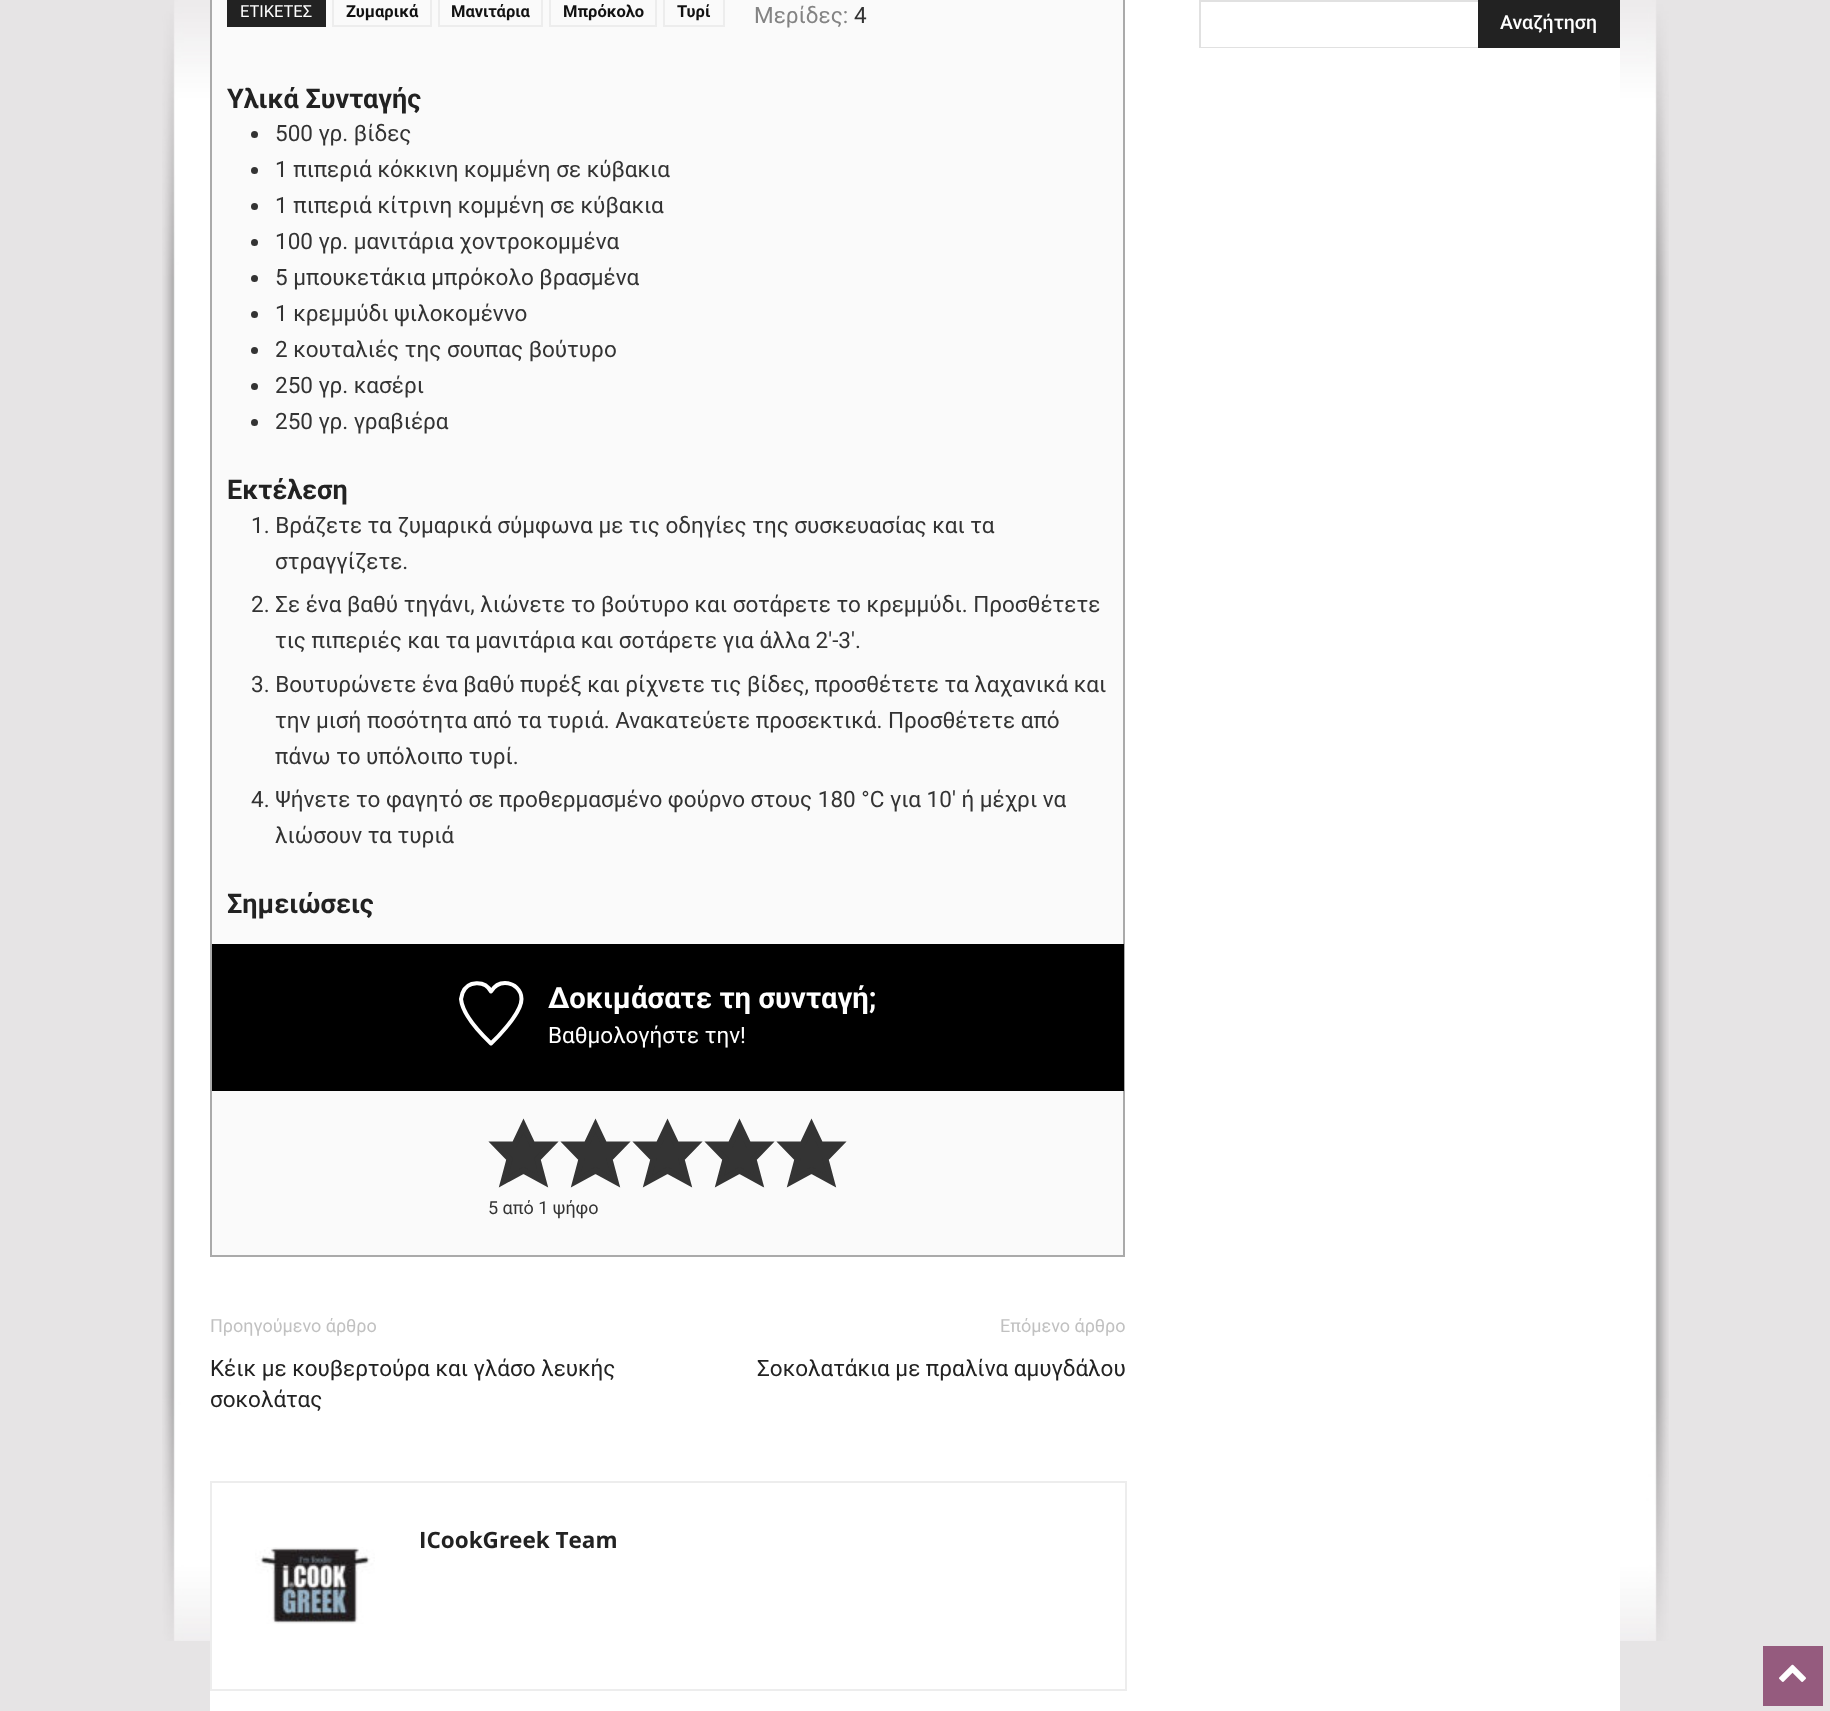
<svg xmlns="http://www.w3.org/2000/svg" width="1830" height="1711">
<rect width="100%" height="100%" fill="#e6e4e5"/>
<image x="162" y="0" width="1507" height="1641" href="media/1.png"/>
<rect x="210" width="1410" height="1711" fill="#fff"/>
<rect x="211" y="-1" width="913" height="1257" fill="#fafafa" stroke="#aaa" stroke-width="2"/>
<rect x="227" width="99" height="27" fill="#222"/>
<text x="240" y="17" style="font-family:Roboto;font-size:16.5px;fill:#fff">ΕΤΙΚΕΤΕΣ</text>
<rect x="333" y="-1" width="98" height="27" fill="none" stroke="#ededed" stroke-width="2"/>
<text x="346" y="17" style="font-family:Roboto;font-size:16.5px;font-weight:bold;fill:#111">Ζυμαρικά</text>
<rect x="439" y="-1" width="103" height="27" fill="none" stroke="#ededed" stroke-width="2"/>
<text x="451" y="17" style="font-family:Roboto;font-size:16.5px;font-weight:bold;fill:#111">Μανιτάρια</text>
<rect x="550" y="-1" width="106" height="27" fill="none" stroke="#ededed" stroke-width="2"/>
<text x="563" y="17" style="font-family:Roboto;font-size:16.5px;font-weight:bold;fill:#111">Μπρόκολο</text>
<rect x="664" y="-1" width="60" height="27" fill="none" stroke="#ededed" stroke-width="2"/>
<text x="677" y="17" style="font-family:Roboto;font-size:16.5px;font-weight:bold;fill:#111">Τυρί</text>
<text x="754" y="23" style="font-family:Roboto;font-size:22.5px;fill:#838383">Μερίδες:</text>
<text x="854" y="23" style="font-family:Roboto;font-size:22.5px;fill:#333">4</text>
<text x="227" y="108" style="font-family:Roboto;font-size:27px;font-weight:bold;fill:#222">Υλικά Συνταγής</text>
<circle cx="254.5" cy="134.5" r="3.5" fill="#333"/>
<text x="275" y="141" style="font-family:Roboto;font-size:22.5px;fill:#333">500 γρ. βίδες</text>
<circle cx="254.5" cy="170.5" r="3.5" fill="#333"/>
<text x="275" y="177" style="font-family:Roboto;font-size:22.5px;fill:#333">1 πιπεριά κόκκινη κομμένη σε κύβακια</text>
<circle cx="254.5" cy="206.5" r="3.5" fill="#333"/>
<text x="275" y="213" style="font-family:Roboto;font-size:22.5px;fill:#333">1 πιπεριά κίτρινη κομμένη σε κύβακια</text>
<circle cx="254.5" cy="242.5" r="3.5" fill="#333"/>
<text x="275" y="249" style="font-family:Roboto;font-size:22.5px;fill:#333">100 γρ. μανιτάρια χοντροκομμένα</text>
<circle cx="254.5" cy="278.5" r="3.5" fill="#333"/>
<text x="275" y="285" style="font-family:Roboto;font-size:22.5px;fill:#333">5 μπουκετάκια μπρόκολο βρασμένα</text>
<circle cx="254.5" cy="314.5" r="3.5" fill="#333"/>
<text x="275" y="321" style="font-family:Roboto;font-size:22.5px;fill:#333">1 κρεμμύδι ψιλοκομέννο</text>
<circle cx="254.5" cy="350.5" r="3.5" fill="#333"/>
<text x="275" y="357" style="font-family:Roboto;font-size:22.5px;fill:#333">2 κουταλιές της σουπας βούτυρο</text>
<circle cx="254.5" cy="386.5" r="3.5" fill="#333"/>
<text x="275" y="393" style="font-family:Roboto;font-size:22.5px;fill:#333">250 γρ. κασέρι</text>
<circle cx="254.5" cy="422.5" r="3.5" fill="#333"/>
<text x="275" y="429" style="font-family:Roboto;font-size:22.5px;fill:#333">250 γρ. γραβιέρα</text>
<text x="227" y="499" style="font-family:Roboto;font-size:27px;font-weight:bold;fill:#222">Εκτέλεση</text>
<text x="251" y="533" style="font-family:Roboto;font-size:22.5px;fill:#333">1. Βράζετε τα ζυμαρικά σύμφωνα με τις οδηγίες της συσκευασίας και τα</text>
<text x="275" y="569" style="font-family:Roboto;font-size:22.5px;fill:#333">στραγγίζετε.</text>
<text x="251" y="612" style="font-family:Roboto;font-size:22.5px;fill:#333">2. Σε ένα βαθύ τηγάνι, λιώνετε το βούτυρο και σοτάρετε το κρεμμύδι. Προσθέτετε</text>
<text x="275" y="648" style="font-family:Roboto;font-size:22.5px;fill:#333">τις πιπεριές και τα μανιτάρια και σοτάρετε για άλλα 2'-3'.</text>
<text x="251" y="692" style="font-family:Roboto;font-size:22.5px;fill:#333">3. Βουτυρώνετε ένα βαθύ πυρέξ και ρίχνετε τις βίδες, προσθέτετε τα λαχανικά και</text>
<text x="275" y="728" style="font-family:Roboto;font-size:22.5px;fill:#333">την μισή ποσότητα από τα τυριά. Ανακατεύετε προσεκτικά. Προσθέτετε από</text>
<text x="275" y="764" style="font-family:Roboto;font-size:22.5px;fill:#333">πάνω το υπόλοιπο τυρί.</text>
<text x="251" y="807" style="font-family:Roboto;font-size:22.5px;fill:#333">4. Ψήνετε το φαγητό σε προθερμασμένο φούρνο στους 180 °C για 10' ή μέχρι να</text>
<text x="275" y="843" style="font-family:Roboto;font-size:22.5px;fill:#333">λιώσουν τα τυριά</text>
<text x="227" y="913" style="font-family:Roboto;font-size:27px;font-weight:bold;fill:#222">Σημειώσεις</text>
<rect x="212" y="944" width="912" height="147" fill="#000"/>
<path d="M505 983c-6 0-11 3.5-14 8.5c-6-11.5-23.5-11-28.5 1.5l-1.5 6c1.5 16 19 34 30 44.5c0 0 30.5-28.5 30.5-44.5c0-9-7.5-16-16.5-16z" fill="none" stroke="#fff" stroke-width="4" stroke-linecap="round" stroke-linejoin="round"/>
<text x="548" y="1008" style="font-family:Roboto;font-size:29.25px;font-weight:bold;fill:#fff">Δοκιμάσατε τη συνταγή;</text>
<text x="548" y="1043" style="font-family:Roboto;font-size:22.5px;fill:#fff">Βαθμολογήστε την!</text>
<path d="M524 1125l8 19h20l-14 15l5 23l-19-12l-20 12l5-23l-14-15h19z" fill="#343434"/>
<path d="M523.5 1125.5l9 19h19l-14 14.5l6 22.5l-20-11l-20 11l6-22.5l-14-14.5h19z" fill="none" stroke="#343434" stroke-width="6" stroke-linecap="square"/>
<path d="M596 1125l8 19h20l-14 15l5 23l-19-12l-20 12l5-23l-14-15h19z" fill="#343434"/>
<path d="M595.5 1125.5l9 19h19l-14 14.5l6 22.5l-20-11l-20 11l6-22.5l-14-14.5h19z" fill="none" stroke="#343434" stroke-width="6" stroke-linecap="square"/>
<path d="M668 1125l8 19h20l-14 15l5 23l-19-12l-20 12l5-23l-14-15h19z" fill="#343434"/>
<path d="M667.5 1125.5l9 19h19l-14 14.5l6 22.5l-20-11l-20 11l6-22.5l-14-14.5h19z" fill="none" stroke="#343434" stroke-width="6" stroke-linecap="square"/>
<path d="M740 1125l8 19h20l-14 15l5 23l-19-12l-20 12l5-23l-14-15h19z" fill="#343434"/>
<path d="M739.5 1125.5l9 19h19l-14 14.5l6 22.5l-20-11l-20 11l6-22.5l-14-14.5h19z" fill="none" stroke="#343434" stroke-width="6" stroke-linecap="square"/>
<path d="M812 1125l8 19h20l-14 15l5 23l-19-12l-20 12l5-23l-14-15h19z" fill="#343434"/>
<path d="M811.5 1125.5l9 19h19l-14 14.5l6 22.5l-20-11l-20 11l6-22.5l-14-14.5h19z" fill="none" stroke="#343434" stroke-width="6" stroke-linecap="square"/>
<text x="488" y="1214" style="font-family:Roboto;font-size:18px;fill:#333">5 από 1 ψήφο</text>
<text x="210" y="1332" style="font-family:Roboto;font-size:18px;fill:#c1c1c1">Προηγούμενο άρθρο</text>
<text x="210" y="1376" style="font-family:Roboto;font-size:22.5px;fill:#222">Κέικ με κουβερτούρα και γλάσο λευκής</text>
<text x="210" y="1407" style="font-family:Roboto;font-size:22.5px;fill:#222">σοκολάτας</text>
<text x="1000" y="1332" style="font-family:Roboto;font-size:18px;fill:#c1c1c1">Επόμενο άρθρο</text>
<text x="757" y="1376" style="font-family:Roboto;font-size:22.5px;fill:#222">Σοκολατάκια με πραλίνα αμυγδάλου</text>
<rect x="211" y="1482" width="915" height="208" fill="none" stroke="#ededed" stroke-width="2"/>
<text x="419" y="1548" style="font-family:Open Sans;font-size:22.5px;font-weight:bold;fill:#222">ICookGreek Team</text>
<image x="255" y="1547" width="120" height="77" href="media/2.png"/>
<rect x="1199" width="279" height="2" fill="#e1e1e1"/>
<rect x="1199" y="47" width="279" height="1" fill="#e1e1e1"/>
<rect x="1199" width="2" height="48" fill="#e1e1e1"/>
<rect x="1478" width="142" height="48" fill="#222"/>
<text x="1500" y="29" style="font-family:Roboto;font-size:19.5px;font-weight:500;fill:#fff">Αναζήτηση</text>
<rect x="1763" y="1646" width="60" height="60" fill="#955b7e"/>
<image x="1779" y="1664" width="27" height="18" href="media/3.png"/>
</svg>
